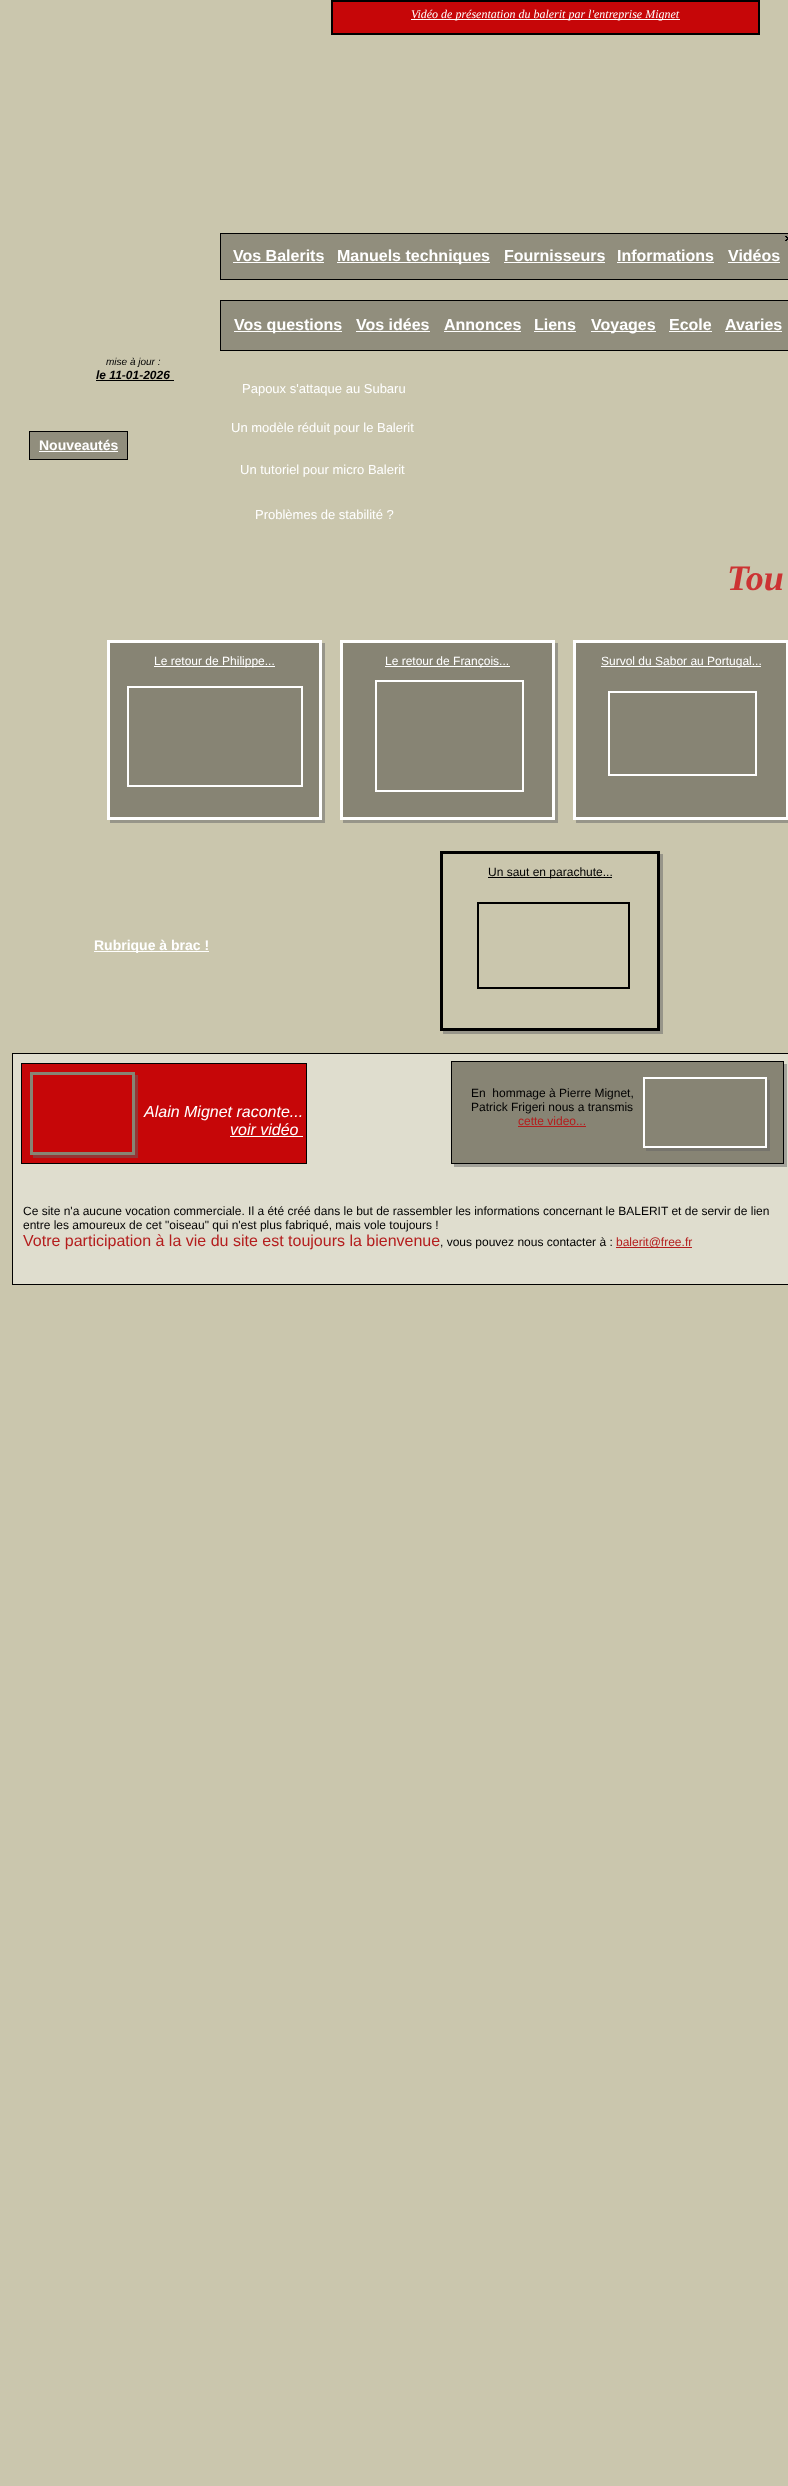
<svg xmlns="http://www.w3.org/2000/svg" width="788" height="2486">
<rect width="100%" height="100%" fill="#cac6ad"/>
<rect x="332" y="1" width="427" height="33" fill="none" stroke="#000" stroke-width="2"/>
<rect x="333" y="2" width="425" height="31" fill="#c60608"/>
<rect x="411" y="19" width="269" height="1" fill="#fff"/>
<text x="411" y="18" style="font-family:Liberation Serif;font-size:12px;font-style:italic;fill:#fff">Vidéo de présentation du balerit par l'entreprise Mignet</text>
<rect x="220.5" y="233.5" width="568" height="46" fill="none" stroke="#000"/>
<rect x="221" y="234" width="567" height="45" fill="#918e7d"/>
<image x="785" y="236" width="3" height="5" href="media/1.png"/>
<text x="233" y="261" style="font-family:Liberation Sans;font-size:16px;font-weight:bold;fill:#fff">Vos Balerits</text>
<rect x="233" y="262" width="91" height="1" fill="#fff"/>
<rect x="337" y="262" width="153" height="1" fill="#fff"/>
<text x="337" y="261" style="font-family:Liberation Sans;font-size:16px;font-weight:bold;fill:#fff">Manuels techniques</text>
<text x="504" y="261" style="font-family:Liberation Sans;font-size:16px;font-weight:bold;fill:#fff">Fournisseurs</text>
<rect x="504" y="262" width="101" height="1" fill="#fff"/>
<text x="617" y="261" style="font-family:Liberation Sans;font-size:16px;font-weight:bold;fill:#fff">Informations</text>
<rect x="617" y="262" width="97" height="1" fill="#fff"/>
<text x="728" y="261" style="font-family:Liberation Sans;font-size:16px;font-weight:bold;fill:#fff">Vidéos</text>
<rect x="728" y="262" width="52" height="1" fill="#fff"/>
<rect x="220.5" y="300.5" width="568" height="50" fill="none" stroke="#000"/>
<rect x="221" y="301" width="567" height="49" fill="#918e7d"/>
<rect x="234" y="331" width="108" height="1" fill="#fff"/>
<text x="234" y="330" style="font-family:Liberation Sans;font-size:16px;font-weight:bold;fill:#fff">Vos questions</text>
<text x="356" y="330" style="font-family:Liberation Sans;font-size:16px;font-weight:bold;fill:#fff">Vos idées</text>
<rect x="356" y="331" width="74" height="1" fill="#fff"/>
<text x="444" y="330" style="font-family:Liberation Sans;font-size:16px;font-weight:bold;fill:#fff">Annonces</text>
<rect x="444" y="331" width="77" height="1" fill="#fff"/>
<text x="534" y="330" style="font-family:Liberation Sans;font-size:16px;font-weight:bold;fill:#fff">Liens</text>
<rect x="534" y="331" width="42" height="1" fill="#fff"/>
<rect x="591" y="331" width="65" height="1" fill="#fff"/>
<text x="591" y="330" style="font-family:Liberation Sans;font-size:16px;font-weight:bold;fill:#fff">Voyages</text>
<text x="669" y="330" style="font-family:Liberation Sans;font-size:16px;font-weight:bold;fill:#fff">Ecole</text>
<rect x="669" y="331" width="43" height="1" fill="#fff"/>
<text x="725" y="330" style="font-family:Liberation Sans;font-size:16px;font-weight:bold;fill:#fff">Avaries</text>
<rect x="725" y="331" width="57" height="1" fill="#fff"/>
<text x="106" y="365" style="font-family:Liberation Sans;font-size:10px;font-style:italic;fill:#000">mise à jour :</text>
<text x="96" y="379" style="font-family:Liberation Sans;font-size:12px;font-weight:bold;font-style:italic;fill:#000">le 11-01-2026</text>
<rect x="96" y="380" width="78" height="1" fill="#000"/>
<text x="242" y="393" style="font-family:Liberation Sans;font-size:13px;fill:#fff">Papoux s'attaque au Subaru</text>
<text x="231" y="432" style="font-family:Liberation Sans;font-size:13px;fill:#fff">Un modèle réduit pour le Balerit</text>
<rect x="29.5" y="431.5" width="98" height="28" fill="none" stroke="#000"/>
<rect x="30" y="432" width="97" height="27" fill="#918e7d"/>
<text x="39" y="450" style="font-family:Liberation Sans;font-size:14px;font-weight:bold;fill:#fff">Nouveautés</text>
<rect x="39" y="451" width="79" height="1" fill="#fff"/>
<text x="240" y="474" style="font-family:Liberation Sans;font-size:13px;fill:#fff">Un tutoriel pour micro Balerit</text>
<text x="255" y="519" style="font-family:Liberation Sans;font-size:13px;fill:#fff">Problèmes de stabilité ?</text>
<text x="727" y="590" style="font-family:Liberation Serif;font-size:36px;font-weight:bold;font-style:italic;fill:#c33">Tou</text>
<rect x="319" y="643" width="6" height="180" fill="#979589"/>
<rect x="108.5" y="641.5" width="212" height="177" fill="none" stroke="#fff" stroke-width="3"/>
<rect x="110" y="643" width="209" height="174" fill="#878474"/>
<rect x="154" y="666" width="121" height="1" fill="#fff"/>
<text x="154" y="665" style="font-family:Liberation Sans;font-size:12px;fill:#fff">Le retour de Philippe...</text>
<rect x="552" y="643" width="6" height="180" fill="#979589"/>
<rect x="341.5" y="641.5" width="212" height="177" fill="none" stroke="#fff" stroke-width="3"/>
<rect x="343" y="643" width="209" height="174" fill="#878474"/>
<rect x="385" y="666" width="125" height="1" fill="#fff"/>
<text x="385" y="665" style="font-family:Liberation Sans;font-size:12px;fill:#fff">Le retour de François...</text>
<rect x="574.5" y="641.5" width="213" height="177" fill="none" stroke="#fff" stroke-width="3"/>
<rect x="576" y="643" width="210" height="174" fill="#878474"/>
<rect x="601" y="666" width="160" height="1" fill="#fff"/>
<text x="601" y="665" style="font-family:Liberation Sans;font-size:12px;fill:#fff">Survol du Sabor au Portugal...</text>
<rect x="128" y="687" width="174" height="99" fill="none" stroke="#fff" stroke-width="2"/>
<rect x="376" y="681" width="147" height="110" fill="none" stroke="#fff" stroke-width="2"/>
<rect x="609" y="692" width="147" height="83" fill="none" stroke="#fff" stroke-width="2"/>
<rect x="110" y="820" width="209" height="3" fill="#979589"/>
<rect x="343" y="820" width="209" height="3" fill="#979589"/>
<rect x="576" y="820" width="212" height="3" fill="#979589"/>
<rect x="657" y="854" width="6" height="180" fill="#979589"/>
<rect x="441.5" y="852.5" width="217" height="177" fill="none" stroke="#000" stroke-width="3"/>
<rect x="488" y="877" width="124" height="1" fill="#000"/>
<text x="488" y="876" style="font-family:Liberation Sans;font-size:12px;fill:#000">Un saut en parachute...</text>
<rect x="94" y="951" width="115" height="1" fill="#fff"/>
<text x="94" y="950" style="font-family:Liberation Sans;font-size:14px;font-weight:bold;fill:#fff">Rubrique à brac !</text>
<rect x="478" y="903" width="151" height="85" fill="none" stroke="#000" stroke-width="2"/>
<rect x="443" y="1031" width="214" height="3" fill="#979589"/>
<rect x="12.5" y="1053.5" width="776" height="231" fill="none" stroke="#000"/>
<rect x="13" y="1054" width="775" height="230" fill="#dfddce"/>
<rect x="21.5" y="1063.5" width="285" height="100" fill="none" stroke="#000"/>
<rect x="22" y="1064" width="284" height="99" fill="#c60608"/>
<rect x="132" y="1075" width="6" height="83" fill="#953536"/>
<rect x="31.5" y="1073.5" width="102" height="80" fill="none" stroke="#878474" stroke-width="3"/>
<rect x="783" y="1064" width="4" height="103" fill="#a2a199"/>
<rect x="451.5" y="1061.5" width="332" height="102" fill="none" stroke="#000"/>
<rect x="452" y="1062" width="331" height="101" fill="#878474"/>
<text x="144" y="1117" style="font-family:Liberation Sans;font-size:16px;font-style:italic;fill:#fff">Alain Mignet raconte...</text>
<text x="230" y="1135" style="font-family:Liberation Sans;font-size:16px;font-style:italic;fill:#fff">voir vidéo</text>
<rect x="230" y="1136" width="73" height="1" fill="#fff"/>
<text x="471" y="1097" style="font-family:Liberation Sans;font-size:12px;fill:#000" xml:space="preserve">En  hommage à Pierre Mignet,</text>
<text x="471" y="1111" style="font-family:Liberation Sans;font-size:12px;fill:#000">Patrick Frigeri nous a transmis</text>
<text x="518" y="1125" style="font-family:Liberation Sans;font-size:12px;fill:#b41d1d">cette video...</text>
<rect x="518" y="1126" width="68" height="1" fill="#b41d1d"/>
<rect x="765" y="1080" width="5" height="71" fill="#76746c"/>
<rect x="644" y="1078" width="122" height="69" fill="none" stroke="#fff" stroke-width="2"/>
<rect x="646" y="1148" width="119" height="3" fill="#76746c"/>
<rect x="33" y="1155" width="99" height="3" fill="#953536"/>
<rect x="454" y="1164" width="329" height="3" fill="#a2a199"/>
<text x="23" y="1215" style="font-family:Liberation Sans;font-size:12px;fill:#000">Ce site n'a aucune vocation commerciale. Il a été créé dans le but de rassembler les informations concernant le BALERIT et de servir de lien</text>
<text x="23" y="1229" style="font-family:Liberation Sans;font-size:12px;fill:#000">entre les amoureux de cet "oiseau" qui n'est plus fabriqué, mais vole toujours !</text>
<text x="23" y="1246" style="font-family:Liberation Sans;font-size:16px;fill:#b41d1d">Votre participation à la vie du site est toujours la bienvenue</text>
<text x="440" y="1246" style="font-family:Liberation Sans;font-size:12px;fill:#000">, vous pouvez nous contacter à :</text>
<rect x="616" y="1247" width="76" height="1" fill="#b41d1d"/>
<text x="616" y="1246" style="font-family:Liberation Sans;font-size:12px;fill:#b41d1d">balerit@free.fr</text>
</svg>
